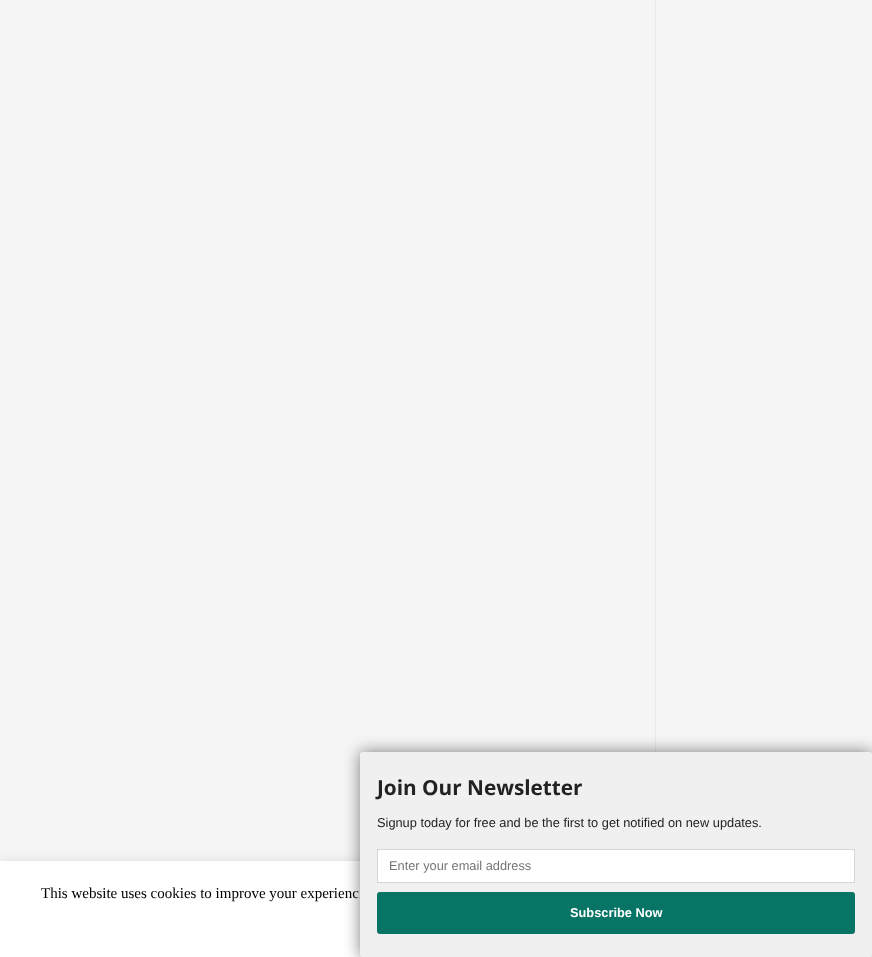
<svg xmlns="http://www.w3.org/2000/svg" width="872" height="957">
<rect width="100%" height="100%" fill="#f5f5f5"/>
<rect x="655" width="1" height="752" fill="#e8e8e8"/>
<rect y="860" width="872" height="96" fill="#acabab4d" filter="blur(5px)"/>
<rect y="861" width="872" height="96" fill="#fff"/>
<text x="41" y="898" style="font-family:Liberation Serif;font-size:15px;fill:#000">This website uses cookies to improve your experienc</text>
<rect x="360" y="752" width="512" height="205" rx="2.5" fill="#00000080" filter="blur(8px)"/>
<rect x="360" y="752" width="512" height="205" rx="2.5" fill="#f0f0f0"/>
<text x="377" y="795" style="font-family:Open Sans;font-size:20.75px;font-weight:bold;fill:#222">Join Our Newsletter</text>
<text x="377" y="827" style="font-family:Liberation Sans;font-size:12.8px;fill:#222">Signup today for free and be the first to get notified on new updates.</text>
<rect x="377.4" y="849.4" width="477.2" height="33.2" fill="#fff" stroke="#ccc" stroke-width="0.8"/>
<text x="389" y="870" style="font-family:Liberation Sans;font-size:12.8px;fill:#757575">Enter your email address</text>
<rect x="377" y="892" width="478" height="42" rx="3" fill="#077466"/>
<text x="570" y="917" style="font-family:Liberation Sans;font-size:12.8px;font-weight:bold;fill:#fff">Subscribe Now</text>
</svg>
